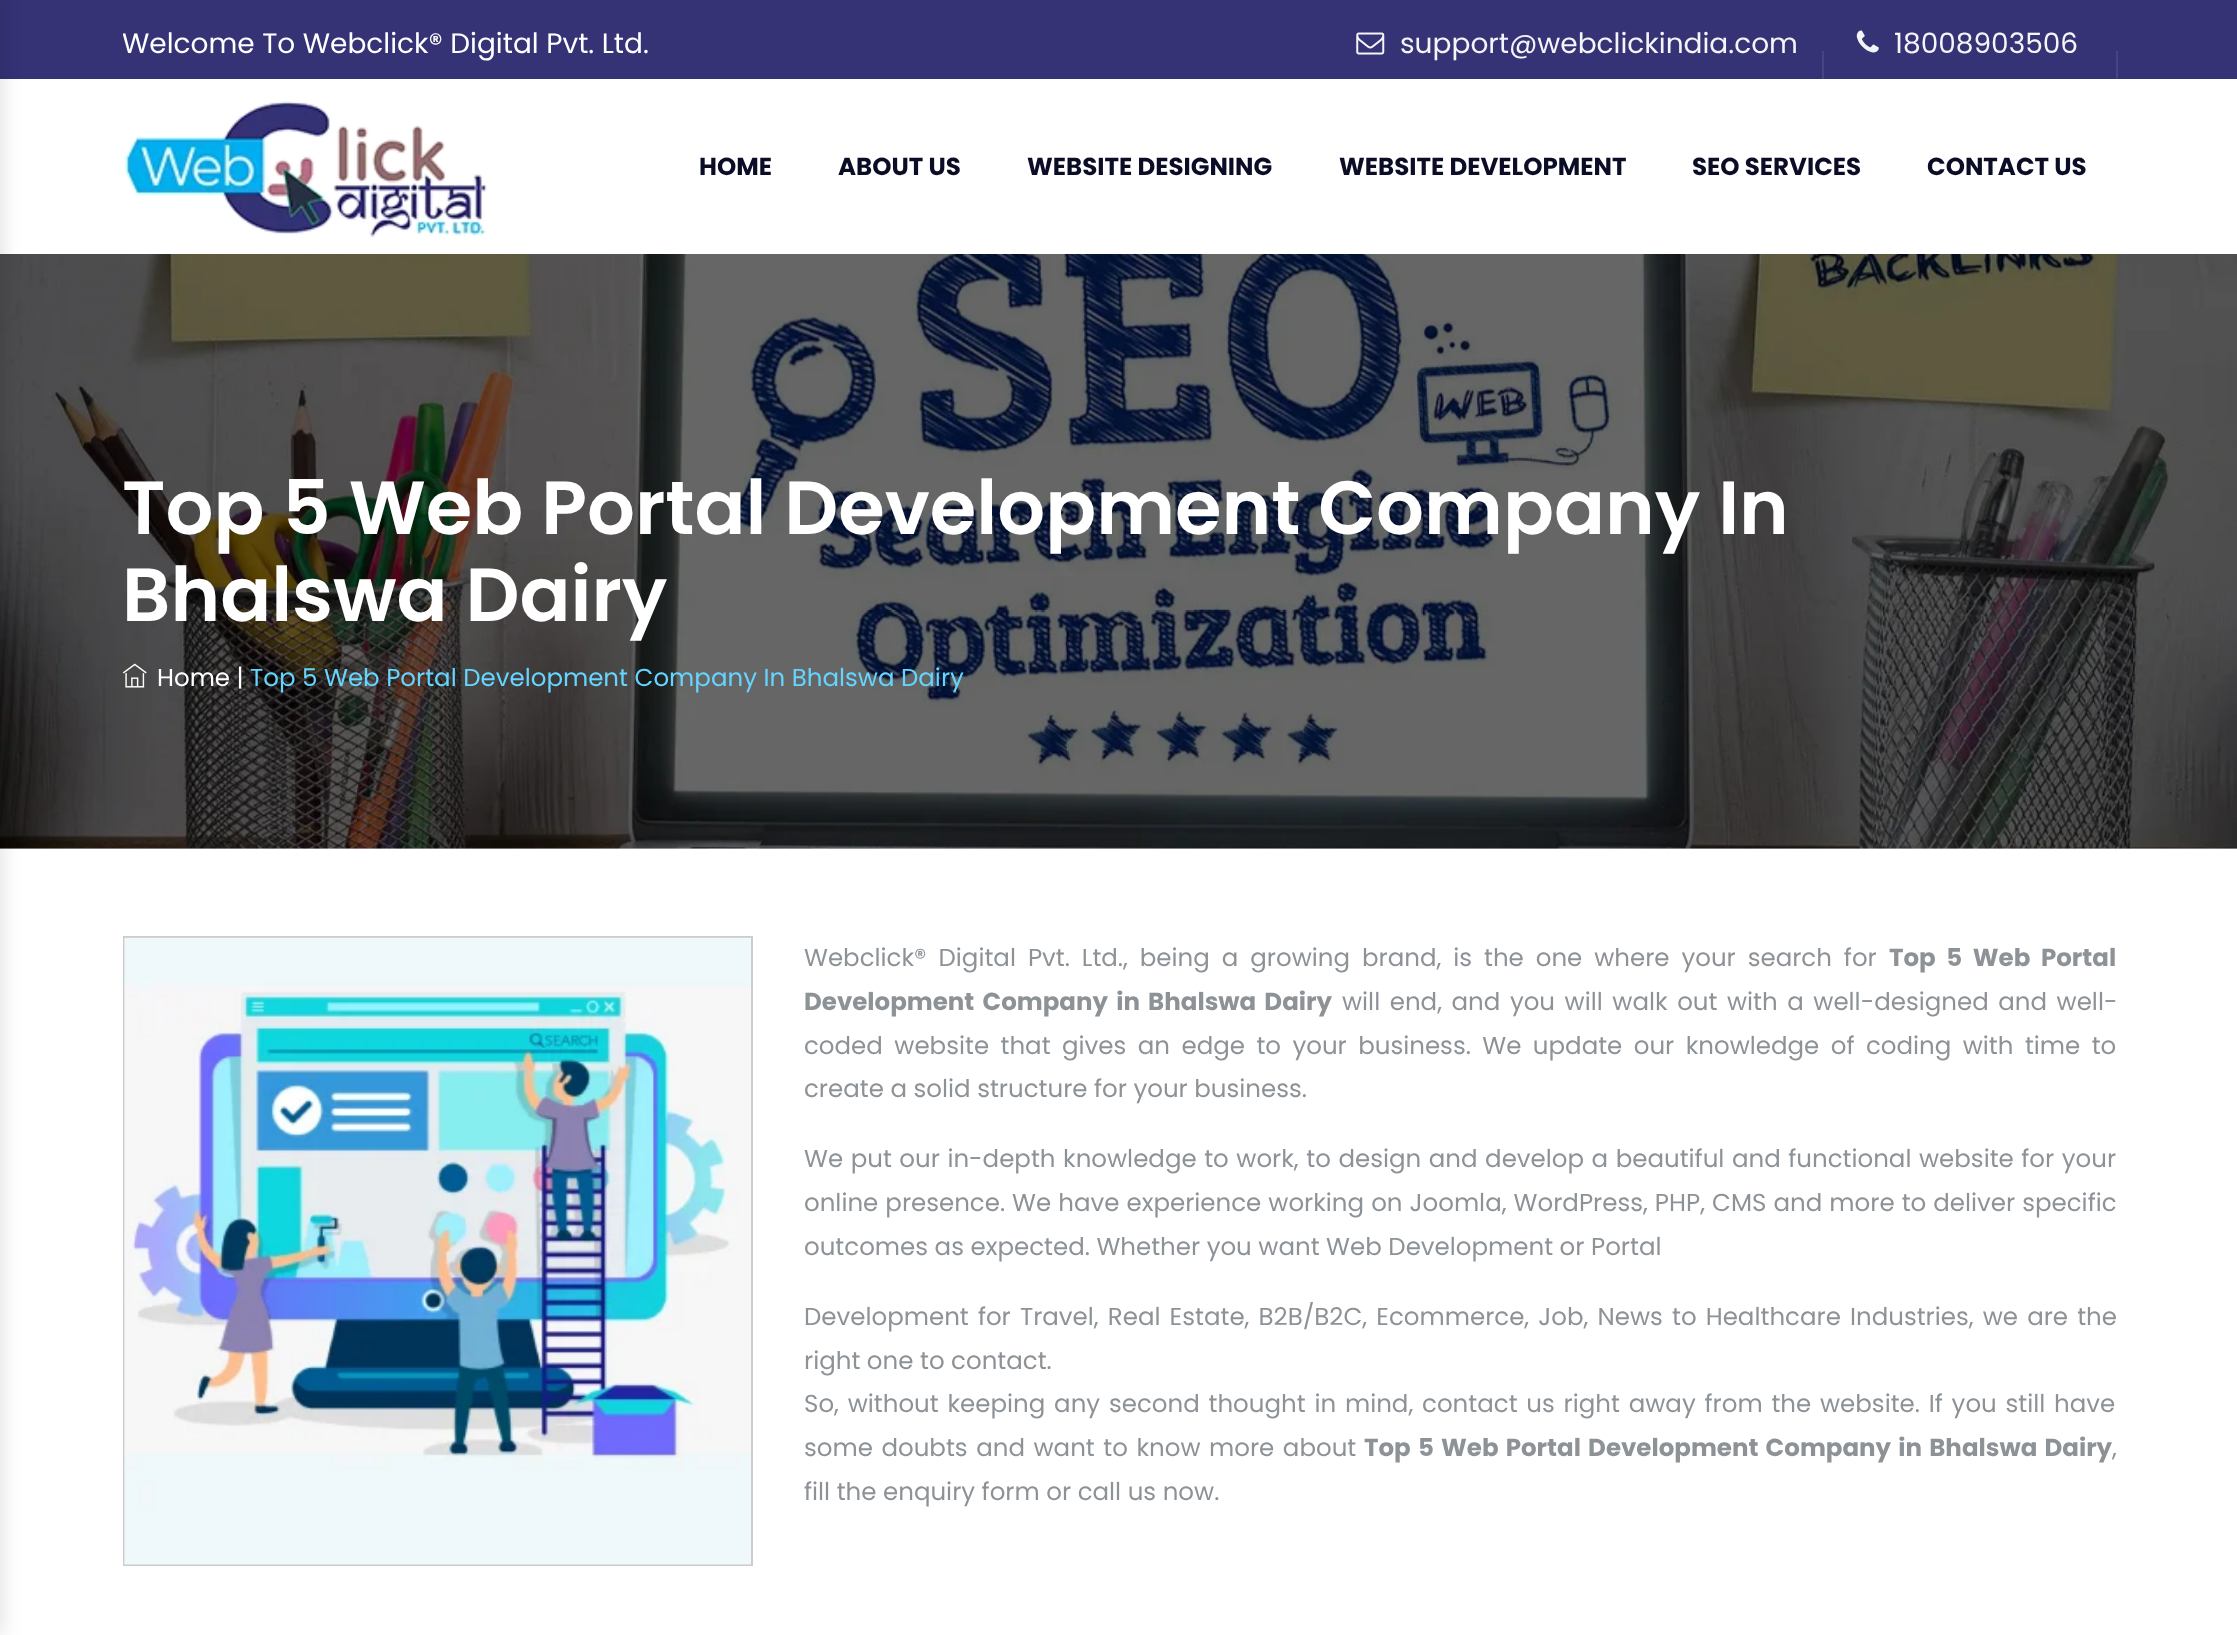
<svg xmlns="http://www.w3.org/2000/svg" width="2237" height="1635">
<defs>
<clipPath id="clip1"><rect x="123" y="14" width="526" height="58"/></clipPath>
</defs>
<rect width="100%" height="100%" fill="#fbfcff"/>
<rect width="2237" height="79" fill="#353275"/>
<rect y="79" width="2237" height="175" fill="#fff"/>
<image x="0" y="254" width="2237" height="595" href="media/4.png"/>
<rect y="849" width="2237" height="786" fill="#fff"/>
<rect x="-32" width="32" height="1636" fill="#00000024" filter="blur(10.5px)"/>
<rect x="2116" y="51" width="2" height="28" fill="#474481"/>
<rect x="1822" y="51" width="2" height="28" fill="#474481"/>
<g clip-path="url(#clip1)">
<text x="122" y="53" style="font-family:Poppins;font-size:28px;fill:#fff">Welcome To Webclick® Digital Pvt. Ltd.</text>
</g>
<image x="1356" y="32" width="29" height="23" href="media/1.png"/>
<text x="1400" y="53" style="font-family:Poppins;font-size:28px;fill:#f5f5f8">support@webclickindia.com</text>
<image x="1856" y="30" width="23" height="23" href="media/2.png"/>
<text x="1894" y="53" style="font-family:Poppins;font-size:28px;fill:#f5f5f8">18008903506</text>
<image x="124" y="100" width="363" height="138" href="media/3.png"/>
<text x="699" y="175" style="font-family:Poppins;font-size:24.5px;font-weight:bold;fill:#0b0c26">HOME</text>
<text x="838" y="175" style="font-family:Poppins;font-size:24.5px;font-weight:bold;fill:#0b0c26">ABOUT US</text>
<text x="1027" y="175" style="font-family:Poppins;font-size:24.5px;font-weight:bold;fill:#0b0c26">WEBSITE DESIGNING</text>
<text x="1339" y="175" style="font-family:Poppins;font-size:24.5px;font-weight:bold;fill:#0b0c26">WEBSITE DEVELOPMENT</text>
<text x="1692" y="175" style="font-family:Poppins;font-size:24.5px;font-weight:bold;fill:#0b0c26">SEO SERVICES</text>
<text x="1927" y="175" style="font-family:Poppins;font-size:24.5px;font-weight:bold;fill:#0b0c26">CONTACT US</text>
<text x="122" y="534" style="font-family:Poppins;font-size:75.25px;font-weight:600;fill:#fff">Top 5 Web Portal Development Company In</text>
<text x="122" y="621" style="font-family:Poppins;font-size:75.25px;font-weight:600;fill:#fff">Bhalswa Dairy</text>
<image x="122" y="663" width="25" height="25" href="media/5.png"/>
<text x="157" y="686" style="font-family:Poppins;font-size:24.5px;fill:#fff">Home |</text>
<text x="250" y="686" style="font-family:Poppins;font-size:24.5px;fill:#65d5ff">Top 5 Web Portal Development Company In Bhalswa Dairy</text>
<rect x="124" y="937" width="628" height="628" fill="none" stroke="#ccc" stroke-width="2"/>
<image x="124" y="937" width="627" height="628" href="media/6.png"/>
<text x="804" y="966" word-spacing="5.4" style="font-family:Poppins;font-size:24.5px;fill:#8d9297">Webclick® Digital Pvt. Ltd., being a growing brand, is the one where your search for</text>
<text x="1889" y="966" word-spacing="5.4" style="font-family:Poppins;font-size:24.5px;font-weight:bold;fill:#8d9297">Top 5 Web Portal</text>
<text x="804" y="1010" word-spacing="3" style="font-family:Poppins;font-size:24.5px;font-weight:bold;fill:#8d9297">Development Company in Bhalswa Dairy</text>
<text x="1342" y="1010" word-spacing="3" style="font-family:Poppins;font-size:24.5px;fill:#8d9297">will end, and you will walk out with a well-designed and well-</text>
<text x="804" y="1054" word-spacing="4.9" style="font-family:Poppins;font-size:24.5px;fill:#8d9297">coded website that gives an edge to your business. We update our knowledge of coding with time to</text>
<text x="804" y="1097" style="font-family:Poppins;font-size:24.5px;fill:#8d9297">create a solid structure for your business.</text>
<text x="804" y="1167" word-spacing="1" style="font-family:Poppins;font-size:24.5px;fill:#8d9297">We put our in-depth knowledge to work, to design and develop a beautiful and functional website for your</text>
<text x="804" y="1211" word-spacing="0.5" style="font-family:Poppins;font-size:24.5px;fill:#8d9297">online presence. We have experience working on Joomla, WordPress, PHP, CMS and more to deliver specific</text>
<text x="804" y="1255" style="font-family:Poppins;font-size:24.5px;fill:#8d9297">outcomes as expected. Whether you want Web Development or Portal</text>
<text x="804" y="1325" word-spacing="2.6" style="font-family:Poppins;font-size:24.5px;fill:#8d9297">Development for Travel, Real Estate, B2B/B2C, Ecommerce, Job, News to Healthcare Industries, we are the</text>
<text x="804" y="1369" style="font-family:Poppins;font-size:24.5px;fill:#8d9297">right one to contact.</text>
<text x="804" y="1412" word-spacing="2.25" style="font-family:Poppins;font-size:24.5px;fill:#8d9297">So, without keeping any second thought in mind, contact us right away from the website. If you still have</text>
<text x="804" y="1456" word-spacing="2" style="font-family:Poppins;font-size:24.5px;fill:#8d9297">some doubts and want to know more about</text>
<text x="1364" y="1456" word-spacing="2" style="font-family:Poppins;font-size:24.5px;font-weight:bold;fill:#8d9297">Top 5 Web Portal Development Company in Bhalswa Dairy</text>
<text x="2112" y="1456" style="font-family:Poppins;font-size:24.5px;fill:#8d9297">,</text>
<text x="804" y="1500" style="font-family:Poppins;font-size:24.5px;fill:#8d9297">fill the enquiry form or call us now.</text>
</svg>
